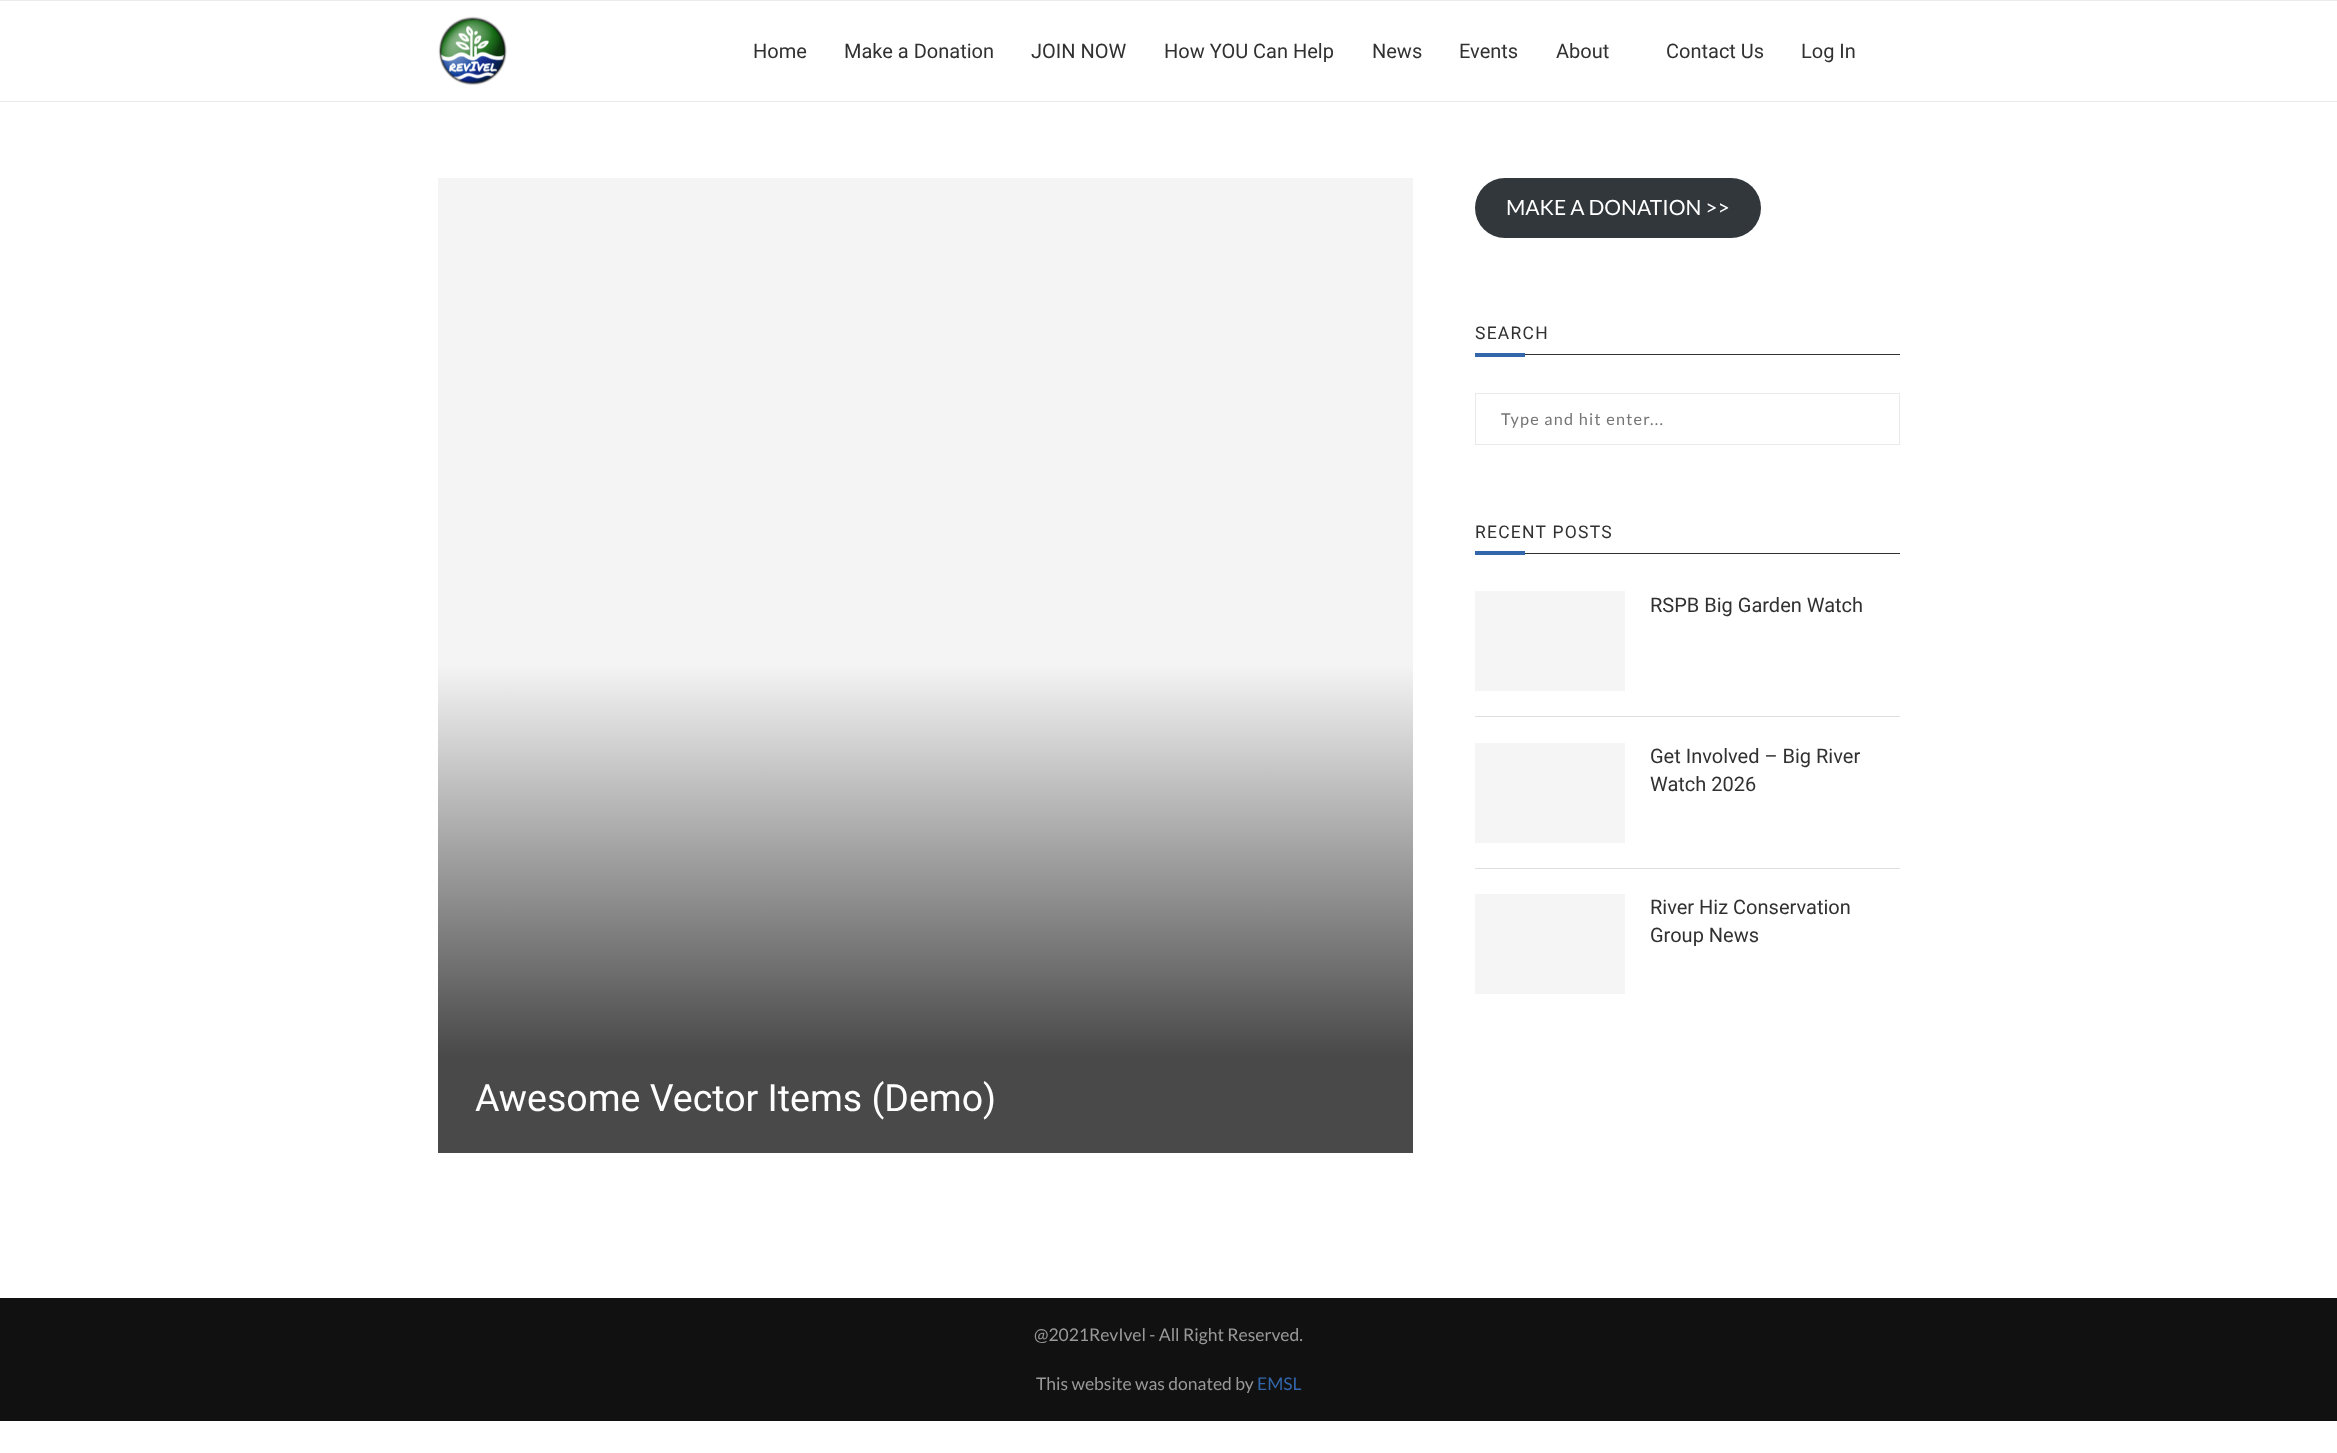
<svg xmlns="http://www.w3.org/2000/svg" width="2337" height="1453">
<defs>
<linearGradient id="g1" gradientUnits="userSpaceOnUse" x1="925" y1="177" x2="925" y2="1153"><stop offset="0.5" stop-color="#f4f4f4"/><stop offset="0.9" stop-color="#494949"/></linearGradient>
</defs>
<rect width="100%" height="100%" fill="#fff"/>
<rect width="2337" height="1" fill="#ececec"/>
<rect y="101" width="2337" height="1" fill="#ececec"/>
<image x="438" y="16" width="69" height="69" href="media/1.png"/>
<text x="753" y="58" style="font-family:Roboto;font-size:20px;fill:#313131">Home</text>
<text x="844" y="58" style="font-family:Roboto;font-size:20px;fill:#313131">Make a Donation</text>
<text x="1031" y="58" style="font-family:Roboto;font-size:20px;fill:#313131">JOIN NOW</text>
<text x="1164" y="58" style="font-family:Roboto;font-size:20px;fill:#313131">How YOU Can Help</text>
<text x="1372" y="58" style="font-family:Roboto;font-size:20px;fill:#313131">News</text>
<text x="1459" y="58" style="font-family:Roboto;font-size:20px;fill:#313131">Events</text>
<text x="1556" y="58" style="font-family:Roboto;font-size:20px;fill:#313131">About</text>
<text x="1666" y="58" style="font-family:Roboto;font-size:20px;fill:#313131">Contact Us</text>
<text x="1801" y="58" style="font-family:Roboto;font-size:20px;fill:#313131">Log In</text>
<rect x="1475" y="178" width="286" height="60" rx="30" fill="#32373c"/>
<text x="1506" y="215" style="font-family:Lato;font-size:21px;fill:#fff">MAKE A DONATION &gt;&gt;</text>
<rect x="1525" y="354" width="375" height="1" fill="#313131"/>
<text x="1475" y="339" style="font-family:Roboto;font-size:17.5px;letter-spacing:1.25px;fill:#313131">SEARCH</text>
<rect x="1475" y="353" width="50" height="4" fill="#36a"/>
<rect x="1475.5" y="393.5" width="424" height="51" fill="none" stroke="#e9e9e9"/>
<text x="1501" y="425" style="font-family:Lato;font-size:16.25px;letter-spacing:1.25px;fill:#757575">Type and hit enter...</text>
<rect x="1525" y="553" width="375" height="1" fill="#313131"/>
<text x="1475" y="538" style="font-family:Roboto;font-size:17.5px;letter-spacing:1.25px;fill:#313131">RECENT POSTS</text>
<rect x="1475" y="551" width="50" height="4" fill="#36a"/>
<rect x="1475" y="716" width="425" height="1" fill="#dedede"/>
<rect x="1475" y="591" width="150" height="100" fill="#f5f5f5"/>
<text x="1650" y="612" style="font-family:Roboto;font-size:20px;fill:#313131">RSPB Big Garden Watch</text>
<rect x="1475" y="868" width="425" height="1" fill="#dedede"/>
<rect x="1475" y="743" width="150" height="100" fill="#f5f5f5"/>
<text x="1650" y="763" style="font-family:Roboto;font-size:20px;fill:#313131">Get Involved – Big River</text>
<text x="1650" y="791" style="font-family:Roboto;font-size:20px;fill:#313131">Watch 2026</text>
<rect x="1475" y="894" width="150" height="100" fill="#f5f5f5"/>
<text x="1650" y="914" style="font-family:Roboto;font-size:20px;fill:#313131">River Hiz Conservation</text>
<text x="1650" y="942" style="font-family:Roboto;font-size:20px;fill:#313131">Group News</text>
<rect x="438" y="178" width="975" height="975" fill="url(#g1)"/>
<text x="475" y="1111" style="font-family:Roboto;font-size:37.5px;fill:#fff">Awesome Vector Items (Demo)</text>
<rect y="1298" width="2337" height="123" fill="#111"/>
<text x="1034" y="1341" style="font-family:Lato;font-size:17.5px;fill:#999">@2021RevIvel - All Right Reserved.</text>
<text x="1036" y="1390" style="font-family:Lato;font-size:17.5px;fill:#999">This website was donated by</text>
<text x="1257" y="1390" style="font-family:Lato;font-size:17.5px;fill:#36a">EMSL</text>
</svg>
